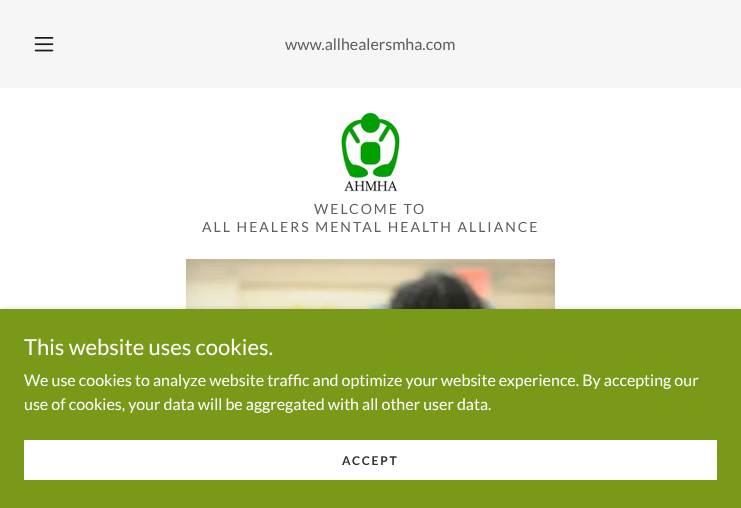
<svg xmlns="http://www.w3.org/2000/svg" width="741" height="508">
<rect width="100%" height="100%" fill="#fff"/>
<rect width="741" height="88" fill="#f6f6f6"/>
<image x="34" y="37" width="20" height="15" href="media/1.png"/>
<text x="285" y="50" style="font-family:Lato;font-size:16px;fill:#5e5e5e">www.allhealersmha.com</text>
<image x="341" y="112" width="59" height="80" href="media/2.png"/>
<text x="314" y="214" style="font-family:Lato;font-size:14px;letter-spacing:2px;fill:#5e5e5e">WELCOME TO</text>
<text x="202" y="232" style="font-family:Lato;font-size:14px;letter-spacing:2px;fill:#5e5e5e">ALL HEALERS MENTAL HEALTH ALLIANCE</text>
<image x="186" y="259" width="369" height="50" href="media/3.png"/>
<rect y="311" width="741" height="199" fill="#0000004d" filter="blur(3px)"/>
<rect y="309" width="741" height="199" fill="#799a19"/>
<text x="24" y="355" style="font-family:Lato;font-size:22px;fill:#fff">This website uses cookies.</text>
<text x="24" y="386" style="font-family:Lato;font-size:16px;fill:#fff">We use cookies to analyze website traffic and optimize your website experience. By accepting our</text>
<text x="24" y="410" style="font-family:Lato;font-size:16px;fill:#fff">use of cookies, your data will be aggregated with all other user data.</text>
<rect x="24" y="440" width="693" height="40" fill="#fff"/>
<text x="342" y="465" style="font-family:Lato;font-size:12px;font-weight:bold;letter-spacing:1.75px;fill:#303030">ACCEPT</text>
</svg>
